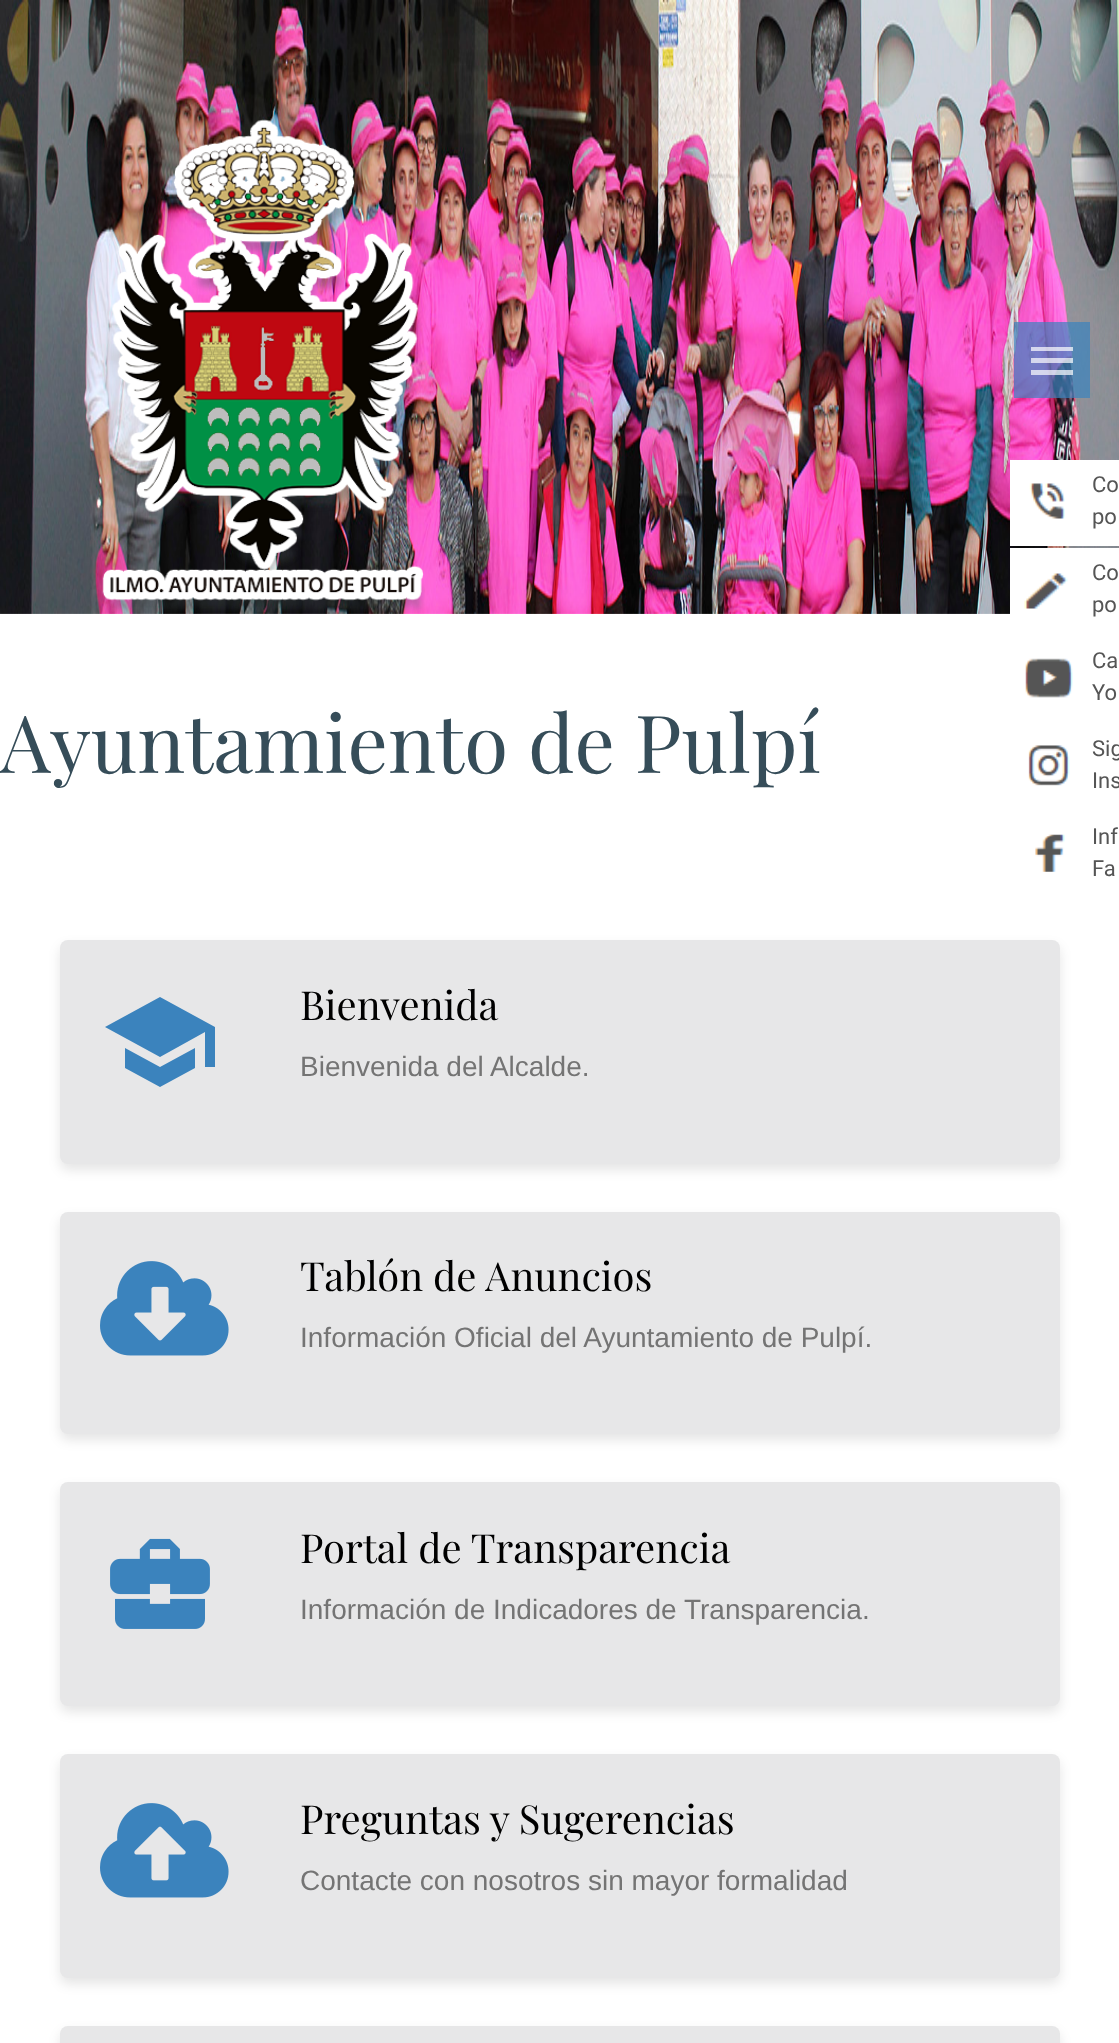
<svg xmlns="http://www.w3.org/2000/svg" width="1119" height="2043">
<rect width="100%" height="100%" fill="#fff"/>
<image x="0" y="0" width="1119" height="614" href="media/1.png"/>
<image x="102" y="119" width="323" height="495" href="media/2.png"/>
<rect x="1014" y="322" width="76" height="76" fill="#3b83bdb3"/>
<path d="M1031 347h42v4h-42zm0 16v-5h42v5zm0 12v-5h42v5z" fill="#ffffffb3"/>
<text x="0" y="773" style="font-family:Playfair Display;font-size:80px;fill:#364d59">Ayuntamiento de Pulpí</text>
<rect x="60" y="946" width="1000" height="224" rx="8" fill="#0000001a" filter="blur(6px)"/>
<rect x="60" y="940" width="1000" height="224" rx="8" fill="#e7e7e8"/>
<path d="M160 997l55 30v40h-10v-35l-45 25l-55-30zm-35 51l35 19l35-19v20l-35 19l-35-19z" fill="#3b83bd"/>
<text x="300" y="1020" style="font-family:Playfair Display;font-size:40px;fill:#000">Bienvenida</text>
<text x="300" y="1076" style="font-family:Liberation Sans;font-size:28px;fill:#747474">Bienvenida del Alcalde.</text>
<rect x="60" y="1218" width="1000" height="222" rx="8" fill="#0000001a" filter="blur(6px)"/>
<rect x="60" y="1212" width="1000" height="222" rx="8" fill="#e7e7e8"/>
<image x="100" y="1261" width="129" height="95" href="media/3.png"/>
<text x="300" y="1291" style="font-family:Playfair Display;font-size:40px;fill:#000">Tablón de Anuncios</text>
<text x="300" y="1347" style="font-family:Liberation Sans;font-size:28px;fill:#747474">Información Oficial del Ayuntamiento de Pulpí.</text>
<rect x="60" y="1488" width="1000" height="224" rx="8" fill="#0000001a" filter="blur(6px)"/>
<rect x="60" y="1482" width="1000" height="224" rx="8" fill="#e7e7e8"/>
<image x="110" y="1538" width="100" height="91" href="media/4.png"/>
<text x="300" y="1563" style="font-family:Playfair Display;font-size:40px;fill:#000">Portal de Transparencia</text>
<text x="300" y="1619" style="font-family:Liberation Sans;font-size:28px;fill:#747474">Información de Indicadores de Transparencia.</text>
<rect x="60" y="1760" width="1000" height="224" rx="8" fill="#0000001a" filter="blur(6px)"/>
<rect x="60" y="1754" width="1000" height="224" rx="8" fill="#e7e7e8"/>
<image x="100" y="1803" width="129" height="95" href="media/5.png"/>
<text x="300" y="1834" style="font-family:Playfair Display;font-size:40px;fill:#000">Preguntas y Sugerencias</text>
<text x="300" y="1890" style="font-family:Liberation Sans;font-size:28px;fill:#747474">Contacte con nosotros sin mayor formalidad</text>
<rect x="60" y="2032" width="1000" height="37" rx="8" fill="#0000001a" filter="blur(6px)"/>
<rect x="60" y="2026" width="1000" height="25" rx="8" fill="#e7e7e8"/>
<rect x="1010" y="460" width="109" height="86" fill="#fff"/>
<image x="1029" y="483" width="36" height="36" href="media/6.png"/>
<text x="1092" y="492" style="font-family:Roboto;font-size:22px;fill:#555">Co</text>
<text x="1092" y="524" style="font-family:Roboto;font-size:22px;fill:#555">po</text>
<rect x="1010" y="548" width="109" height="66" fill="#fff"/>
<image x="1024" y="573" width="44" height="36" href="media/7.png"/>
<text x="1092" y="580" style="font-family:Roboto;font-size:22px;fill:#555">Co</text>
<text x="1092" y="612" style="font-family:Roboto;font-size:22px;fill:#555">po</text>
<image x="1025" y="658" width="48" height="40" href="media/8.png"/>
<text x="1092" y="668" style="font-family:Roboto;font-size:22px;fill:#555">Ca</text>
<text x="1092" y="700" style="font-family:Roboto;font-size:22px;fill:#555">Yo</text>
<image x="1028" y="745" width="42" height="41" href="media/9.png"/>
<text x="1092" y="756" style="font-family:Roboto;font-size:22px;fill:#555">Sig</text>
<text x="1092" y="788" style="font-family:Roboto;font-size:22px;fill:#555">Ins</text>
<image x="1035" y="834" width="30" height="38" href="media/10.png"/>
<text x="1092" y="844" style="font-family:Roboto;font-size:22px;fill:#555">Inf</text>
<text x="1092" y="876" style="font-family:Roboto;font-size:22px;fill:#555">Fa</text>
</svg>
